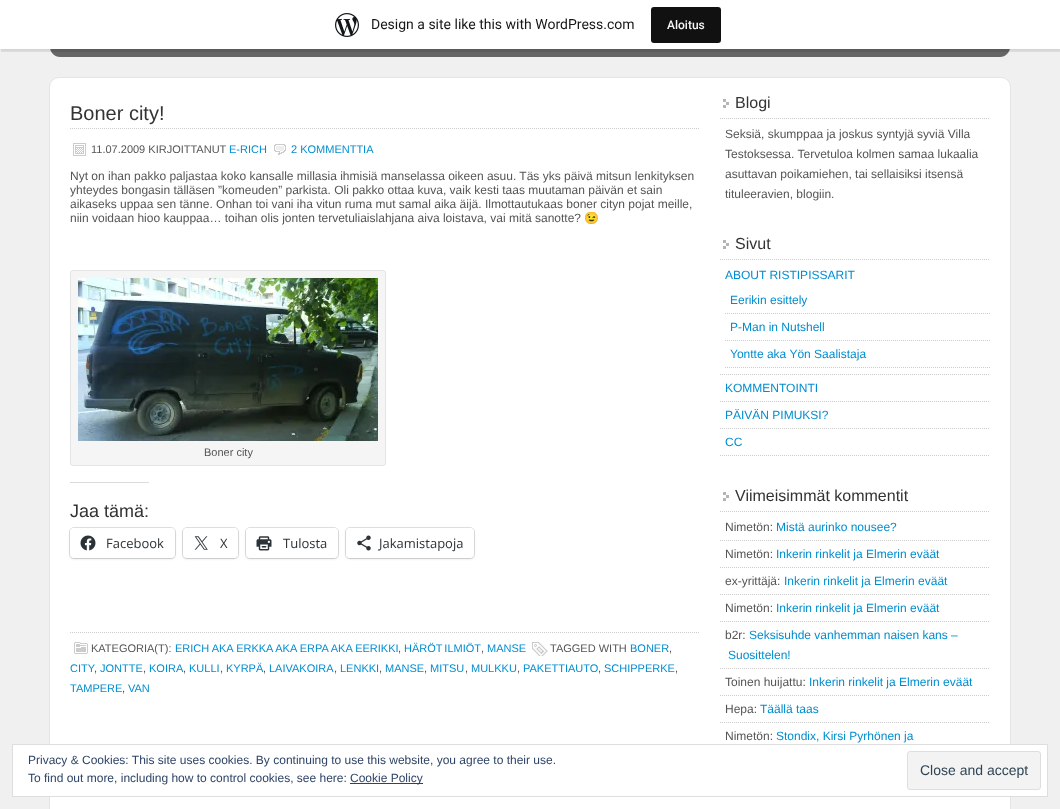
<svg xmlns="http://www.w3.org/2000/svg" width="1060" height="809">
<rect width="100%" height="100%" fill="#f0f0f0"/>
<path d="M50-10h960v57c0 5.5-4.5 10-10 10h-940c-5.5 0-10-4.5-10-10z" fill="#666"/>
<rect y="1" width="1060" height="49" fill="#0000000d" filter="blur(1px)"/>
<path d="M1 49v3h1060v-49h-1v46z" fill="#00000014"/>
<rect width="1060" height="49" fill="#fff"/>
<image x="335" y="13" width="24" height="24" href="media/1.png"/>
<text x="371" y="29" style="font-family:Roboto;font-size:14px;fill:#171717">Design a site like this with WordPress.com</text>
<rect x="651" y="7" width="70" height="36" rx="3" fill="#111"/>
<text x="667" y="29" style="font-family:Roboto;font-size:12px;font-weight:500;fill:#f6f7f7">Aloitus</text>
<rect x="49.5" y="77.5" width="961" height="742" rx="9.5" fill="#fff" stroke="#e4e4e4"/>
<path d="M70 128.5h630" fill="none" stroke="#ccc" stroke-dasharray="1 1"/>
<text x="70" y="120" style="font-family:Liberation Sans;font-size:20px;fill:#333">Boner city!</text>
<image x="73" y="143" width="13" height="13" href="media/2.png"/>
<text x="91" y="153" style="font-family:Liberation Sans;font-size:11px;fill:#555">11.07.2009 KIRJOITTANUT</text>
<text x="229" y="153" style="font-family:Liberation Sans;font-size:11px;fill:#008dcf">E-RICH</text>
<image x="274" y="144" width="12" height="11" href="media/3.png"/>
<text x="291" y="153" style="font-family:Liberation Sans;font-size:11px;fill:#008dcf">2 KOMMENTTIA</text>
<text x="70" y="180" style="font-family:Liberation Sans;font-size:12px;fill:#555">Nyt on ihan pakko paljastaa koko kansalle millasia ihmisiä manselassa oikeen asuu. Täs yks päivä mitsun lenkityksen</text>
<text x="70" y="194" style="font-family:Liberation Sans;font-size:12px;fill:#555">yhteydes bongasin tälläsen ”komeuden” parkista. Oli pakko ottaa kuva, vaik kesti taas muutaman päivän et sain</text>
<text x="70" y="208" style="font-family:Liberation Sans;font-size:12px;fill:#555">aikaseks uppaa sen tänne. Onhan toi vani iha vitun ruma mut samal aika äijä. Ilmottautukaas boner cityn pojat meille,</text>
<text x="70" y="222" style="font-family:Liberation Sans;font-size:12px;fill:#555">niin voidaan hioo kauppaa… toihan olis jonten tervetuliaislahjana aiva loistava, vai mitä sanotte?</text>
<text x="584" y="222" style="font-family:Noto Color Emoji;font-size:12px;fill:#555">😉</text>
<rect x="70.5" y="270.5" width="315" height="195" rx="2.5" fill="#f5f5f5" stroke="#e4e4e4"/>
<image x="78" y="278" width="300" height="163" href="media/4.png"/>
<text x="204" y="456" style="font-family:Liberation Sans;font-size:11px;fill:#555">Boner city</text>
<rect x="70" y="482" width="79" height="1" fill="#dcdcde"/>
<text x="70" y="517" style="font-family:Liberation Sans;font-size:18px;fill:#333">Jaa tämä:</text>
<rect x="69.5" y="527.5" width="106" height="31" rx="4.5" fill="none" stroke="#e0e0e0"/>
<rect x="70" y="529" width="105" height="30" rx="4" fill="#0000001f" filter="blur(1px)"/>
<rect x="70" y="528" width="105" height="30" rx="4" fill="#fff"/>
<image x="80" y="535" width="16" height="16" href="media/5.png"/>
<text x="106" y="548" style="font-family:Open Sans;font-size:13px;fill:#2c3338">Facebook</text>
<rect x="182.5" y="527.5" width="56" height="31" rx="4.5" fill="none" stroke="#e0e0e0"/>
<rect x="183" y="529" width="55" height="30" rx="4" fill="#0000001f" filter="blur(1px)"/>
<rect x="183" y="528" width="55" height="30" rx="4" fill="#fff"/>
<image x="194" y="536" width="14" height="14" href="media/6.png"/>
<text x="220" y="548" style="font-family:Open Sans;font-size:13px;fill:#2c3338">X</text>
<rect x="245.5" y="527.5" width="93" height="31" rx="4.5" fill="none" stroke="#e0e0e0"/>
<rect x="246" y="529" width="92" height="30" rx="4" fill="#0000001f" filter="blur(1px)"/>
<rect x="246" y="528" width="92" height="30" rx="4" fill="#fff"/>
<image x="256" y="536" width="16" height="15" href="media/7.png"/>
<text x="283" y="548" style="font-family:Open Sans;font-size:13px;fill:#2c3338">Tulosta</text>
<rect x="345.5" y="527.5" width="129" height="31" rx="4.5" fill="none" stroke="#e0e0e0"/>
<rect x="346" y="529" width="128" height="30" rx="4" fill="#0000001f" filter="blur(1px)"/>
<rect x="346" y="528" width="128" height="30" rx="4" fill="#fff"/>
<image x="357" y="535" width="14" height="16" href="media/8.png"/>
<text x="379" y="548" style="font-family:Open Sans;font-size:13px;fill:#2c3338">Jakamistapoja</text>
<path d="M70 632.5h630" fill="none" stroke="#ccc" stroke-dasharray="1 1"/>
<image x="74" y="642" width="14" height="12" href="media/9.png"/>
<text x="91" y="652" style="font-family:Liberation Sans;font-size:11px;fill:#555">KATEGORIA(T):</text>
<text x="175" y="652" style="font-family:Liberation Sans;font-size:11px;fill:#008dcf">ERICH AKA ERKKA AKA ERPA AKA EERIKKI</text>
<text x="398" y="652" style="font-family:Liberation Sans;font-size:11px;fill:#555">,</text>
<text x="404" y="652" word-spacing="-1" style="font-family:Liberation Sans;font-size:11px;fill:#008dcf">HÄRÖT ILMIÖT</text>
<text x="481" y="652" style="font-family:Liberation Sans;font-size:11px;fill:#555">,</text>
<text x="487" y="652" style="font-family:Liberation Sans;font-size:11px;fill:#008dcf">MANSE</text>
<image x="532" y="642" width="16" height="14" href="media/10.png"/>
<text x="550" y="652" style="font-family:Liberation Sans;font-size:11px;fill:#555">TAGGED WITH</text>
<text x="630" y="652" style="font-family:Liberation Sans;font-size:11px;fill:#008dcf">BONER</text>
<text x="669" y="652" style="font-family:Liberation Sans;font-size:11px;fill:#555">,</text>
<text x="70" y="672" style="font-family:Liberation Sans;font-size:11px;fill:#008dcf">CITY</text>
<text x="100" y="672" style="font-family:Liberation Sans;font-size:11px;fill:#008dcf">JONTTE</text>
<text x="149" y="672" style="font-family:Liberation Sans;font-size:11px;fill:#008dcf">KOIRA</text>
<text x="189" y="672" style="font-family:Liberation Sans;font-size:11px;fill:#008dcf">KULLI</text>
<text x="226" y="672" style="font-family:Liberation Sans;font-size:11px;fill:#008dcf">KYRPÄ</text>
<text x="269" y="672" style="font-family:Liberation Sans;font-size:11px;fill:#008dcf">LAIVAKOIRA</text>
<text x="340" y="672" style="font-family:Liberation Sans;font-size:11px;fill:#008dcf">LENKKI</text>
<text x="385" y="672" style="font-family:Liberation Sans;font-size:11px;fill:#008dcf">MANSE</text>
<text x="430" y="672" style="font-family:Liberation Sans;font-size:11px;fill:#008dcf">MITSU</text>
<text x="471" y="672" style="font-family:Liberation Sans;font-size:11px;fill:#008dcf">MULKKU</text>
<text x="523" y="672" style="font-family:Liberation Sans;font-size:11px;fill:#008dcf">PAKETTIAUTO</text>
<text x="604" y="672" style="font-family:Liberation Sans;font-size:11px;fill:#008dcf">SCHIPPERKE</text>
<text x="94" y="672" style="font-family:Liberation Sans;font-size:11px;fill:#555">,</text>
<text x="143" y="672" style="font-family:Liberation Sans;font-size:11px;fill:#555">,</text>
<text x="183" y="672" style="font-family:Liberation Sans;font-size:11px;fill:#555">,</text>
<text x="220" y="672" style="font-family:Liberation Sans;font-size:11px;fill:#555">,</text>
<text x="263" y="672" style="font-family:Liberation Sans;font-size:11px;fill:#555">,</text>
<text x="334" y="672" style="font-family:Liberation Sans;font-size:11px;fill:#555">,</text>
<text x="379" y="672" style="font-family:Liberation Sans;font-size:11px;fill:#555">,</text>
<text x="424" y="672" style="font-family:Liberation Sans;font-size:11px;fill:#555">,</text>
<text x="465" y="672" style="font-family:Liberation Sans;font-size:11px;fill:#555">,</text>
<text x="517" y="672" style="font-family:Liberation Sans;font-size:11px;fill:#555">,</text>
<text x="598" y="672" style="font-family:Liberation Sans;font-size:11px;fill:#555">,</text>
<text x="675" y="672" style="font-family:Liberation Sans;font-size:11px;fill:#555">,</text>
<text x="70" y="692" style="font-family:Liberation Sans;font-size:11px;fill:#008dcf">TAMPERE</text>
<text x="122" y="692" style="font-family:Liberation Sans;font-size:11px;fill:#555">,</text>
<text x="128" y="692" style="font-family:Liberation Sans;font-size:11px;fill:#008dcf">VAN</text>
<image x="723" y="99" width="6" height="9" href="media/11.png"/>
<path d="M720 118.5h270" fill="none" stroke="#ccc" stroke-dasharray="1 1"/>
<text x="735" y="108" style="font-family:Liberation Sans;font-size:16px;fill:#333">Blogi</text>
<text x="725" y="138" style="font-family:Liberation Sans;font-size:12px;fill:#555">Seksiä, skumppaa ja joskus syntyjä syviä Villa</text>
<text x="725" y="158" style="font-family:Liberation Sans;font-size:12px;fill:#555">Testoksessa. Tervetuloa kolmen samaa lukaalia</text>
<text x="725" y="178" style="font-family:Liberation Sans;font-size:12px;fill:#555">asuttavan poikamiehen, tai sellaisiksi itsensä</text>
<text x="725" y="198" style="font-family:Liberation Sans;font-size:12px;fill:#555">tituleeravien, blogiin.</text>
<image x="723" y="240" width="6" height="9" href="media/11.png"/>
<path d="M720 259.5h270" fill="none" stroke="#ccc" stroke-dasharray="1 1"/>
<text x="735" y="249" style="font-family:Liberation Sans;font-size:16px;fill:#333">Sivut</text>
<path d="M720 374.5h270" fill="none" stroke="#ccc" stroke-dasharray="1 1"/>
<text x="725" y="279" style="font-family:Liberation Sans;font-size:12px;fill:#008dcf">ABOUT RISTIPISSARIT</text>
<path d="M725 313.5h265" fill="none" stroke="#ccc" stroke-dasharray="1 1"/>
<text x="730" y="304" style="font-family:Liberation Sans;font-size:12px;fill:#008dcf">Eerikin esittely</text>
<path d="M725 340.5h265" fill="none" stroke="#ccc" stroke-dasharray="1 1"/>
<text x="730" y="331" style="font-family:Liberation Sans;font-size:12px;fill:#008dcf">P-Man in Nutshell</text>
<path d="M725 367.5h265" fill="none" stroke="#ccc" stroke-dasharray="1 1"/>
<text x="730" y="358" style="font-family:Liberation Sans;font-size:12px;fill:#008dcf">Yontte aka Yön Saalistaja</text>
<path d="M720 401.5h270" fill="none" stroke="#ccc" stroke-dasharray="1 1"/>
<text x="725" y="392" style="font-family:Liberation Sans;font-size:12px;fill:#008dcf">KOMMENTOINTI</text>
<path d="M720 428.5h270" fill="none" stroke="#ccc" stroke-dasharray="1 1"/>
<text x="725" y="419" style="font-family:Liberation Sans;font-size:12px;fill:#008dcf">PÄIVÄN PIMUKSI?</text>
<path d="M720 455.5h270" fill="none" stroke="#ccc" stroke-dasharray="1 1"/>
<text x="725" y="446" style="font-family:Liberation Sans;font-size:12px;fill:#008dcf">CC</text>
<image x="723" y="492" width="6" height="9" href="media/11.png"/>
<path d="M720 511.5h270" fill="none" stroke="#ccc" stroke-dasharray="1 1"/>
<text x="735" y="501" style="font-family:Liberation Sans;font-size:16px;fill:#333">Viimeisimmät kommentit</text>
<path d="M720 540.5h270" fill="none" stroke="#ccc" stroke-dasharray="1 1"/>
<text x="725" y="531" style="font-family:Liberation Sans;font-size:12px;fill:#555">Nimetön:</text>
<text x="776" y="531" style="font-family:Liberation Sans;font-size:12px;fill:#008dcf">Mistä aurinko nousee?</text>
<path d="M720 567.5h270" fill="none" stroke="#ccc" stroke-dasharray="1 1"/>
<text x="725" y="558" style="font-family:Liberation Sans;font-size:12px;fill:#555">Nimetön:</text>
<text x="776" y="558" style="font-family:Liberation Sans;font-size:12px;fill:#008dcf">Inkerin rinkelit ja Elmerin eväät</text>
<path d="M720 594.5h270" fill="none" stroke="#ccc" stroke-dasharray="1 1"/>
<text x="725" y="585" style="font-family:Liberation Sans;font-size:12px;fill:#555">ex-yrittäjä:</text>
<text x="784" y="585" style="font-family:Liberation Sans;font-size:12px;fill:#008dcf">Inkerin rinkelit ja Elmerin eväät</text>
<path d="M720 621.5h270" fill="none" stroke="#ccc" stroke-dasharray="1 1"/>
<text x="725" y="612" style="font-family:Liberation Sans;font-size:12px;fill:#555">Nimetön:</text>
<text x="776" y="612" style="font-family:Liberation Sans;font-size:12px;fill:#008dcf">Inkerin rinkelit ja Elmerin eväät</text>
<path d="M720 668.5h270" fill="none" stroke="#ccc" stroke-dasharray="1 1"/>
<text x="725" y="639" style="font-family:Liberation Sans;font-size:12px;fill:#555">b2r:</text>
<text x="749" y="639" style="font-family:Liberation Sans;font-size:12px;fill:#008dcf">Seksisuhde vanhemman naisen kans –</text>
<text x="728" y="659" style="font-family:Liberation Sans;font-size:12px;fill:#008dcf">Suosittelen!</text>
<path d="M720 695.5h270" fill="none" stroke="#ccc" stroke-dasharray="1 1"/>
<text x="725" y="686" style="font-family:Liberation Sans;font-size:12px;fill:#555">Toinen huijattu:</text>
<text x="809" y="686" style="font-family:Liberation Sans;font-size:12px;fill:#008dcf">Inkerin rinkelit ja Elmerin eväät</text>
<path d="M720 722.5h270" fill="none" stroke="#ccc" stroke-dasharray="1 1"/>
<text x="725" y="713" style="font-family:Liberation Sans;font-size:12px;fill:#555">Hepa:</text>
<text x="760" y="713" style="font-family:Liberation Sans;font-size:12px;fill:#008dcf">Täällä taas</text>
<text x="725" y="740" style="font-family:Liberation Sans;font-size:12px;fill:#555">Nimetön:</text>
<text x="776" y="740" style="font-family:Liberation Sans;font-size:12px;fill:#008dcf">Stondix, Kirsi Pyrhönen ja</text>
<rect x="12.5" y="744.5" width="1035" height="52" fill="#fff" stroke="#dedede"/>
<text x="28" y="764" style="font-family:Liberation Sans;font-size:12px;fill:#2e4467">Privacy &amp; Cookies: This site uses cookies. By continuing to use this website, you agree to their use.</text>
<text x="28" y="782" style="font-family:Liberation Sans;font-size:12px;fill:#2e4467">To find out more, including how to control cookies, see here:</text>
<rect x="350" y="783" width="73" height="1" fill="#2e4467"/>
<text x="350" y="782" style="font-family:Liberation Sans;font-size:12px;fill:#2e4467">Cookie Policy</text>
<rect x="907.5" y="751.5" width="133" height="38" rx="2.5" fill="#f3f3f3" stroke="#dedede"/>
<text x="920" y="775" style="font-family:Liberation Sans;font-size:14px;fill:#2e4453">Close and accept</text>
</svg>
